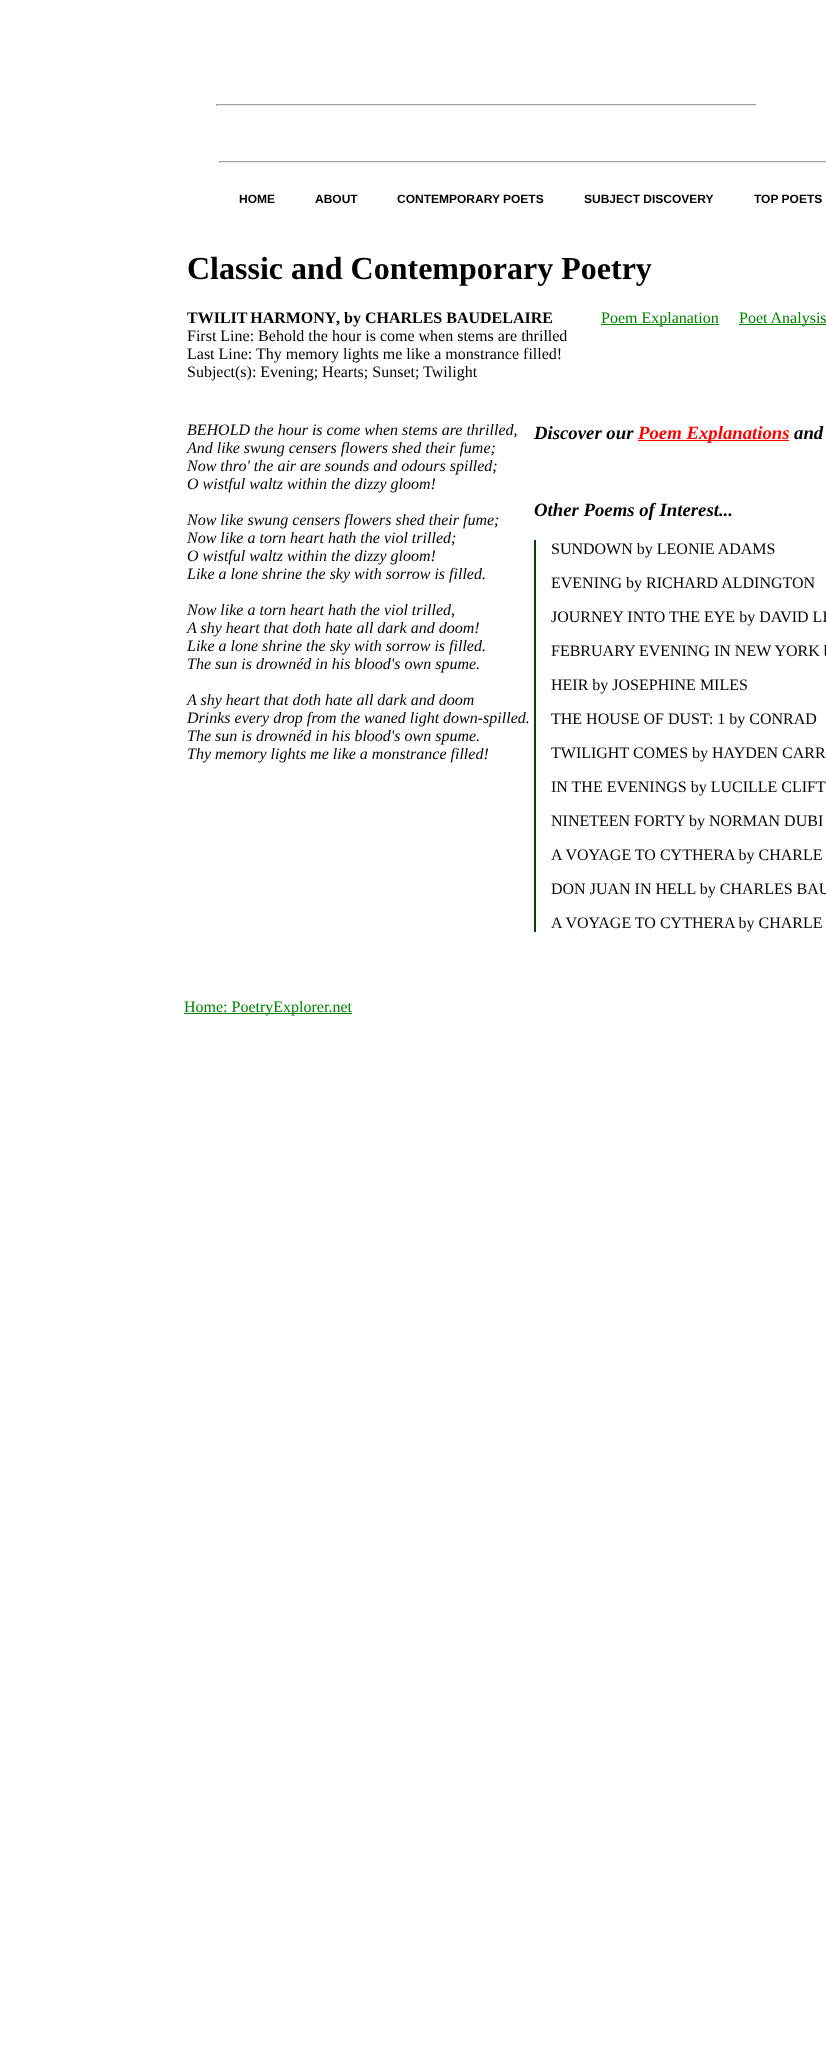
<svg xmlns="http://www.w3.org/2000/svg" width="826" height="2066">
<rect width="100%" height="100%" fill="#fff"/>
<rect x="216" y="104" width="541" height="1" fill="#9f9f9f"/>
<rect x="756" y="104" width="1" height="2" fill="#eee"/>
<rect x="216" y="105" width="541" height="1" fill="#eee"/>
<rect x="216" y="104" width="1" height="2" fill="#9f9f9f"/>
<rect x="219" y="161" width="607" height="1" fill="#9f9f9f"/>
<rect x="219" y="162" width="607" height="1" fill="#eee"/>
<rect x="219" y="161" width="1" height="2" fill="#9f9f9f"/>
<text x="239" y="203" style="font-family:Liberation Sans;font-size:12px;font-weight:bold;fill:#000">HOME</text>
<text x="315" y="203" style="font-family:Liberation Sans;font-size:12px;font-weight:bold;fill:#000">ABOUT</text>
<text x="397" y="203" style="font-family:Liberation Sans;font-size:12px;font-weight:bold;fill:#000">CONTEMPORARY POETS</text>
<text x="584" y="203" style="font-family:Liberation Sans;font-size:12px;font-weight:bold;fill:#000">SUBJECT DISCOVERY</text>
<text x="754" y="203" style="font-family:Liberation Sans;font-size:12px;font-weight:bold;fill:#000">TOP POETS</text>
<text x="187" y="279" style="font-family:Liberation Serif;font-size:32px;font-weight:bold;fill:#000">Classic and Contemporary Poetry</text>
<text x="187" y="323" word-spacing="-1" style="font-family:Liberation Serif;font-size:16px;font-weight:bold;fill:#000">TWILIT HARMONY</text>
<text x="336" y="323" style="font-family:Liberation Serif;font-size:16px;font-weight:bold;fill:#000">, by CHARLES BAUDELAIRE</text>
<rect x="601" y="324" width="118" height="1" fill="#008000"/>
<text x="601" y="323" style="font-family:Liberation Serif;font-size:16px;fill:#008000">Poem Explanation</text>
<rect x="739" y="324" width="87" height="1" fill="#008000"/>
<text x="739" y="323" style="font-family:Liberation Serif;font-size:16px;fill:#008000">Poet Analysis</text>
<text x="187" y="341" style="font-family:Liberation Serif;font-size:16px;fill:#000">First Line: Behold the hour is come when stems are thrilled</text>
<text x="187" y="359" style="font-family:Liberation Serif;font-size:16px;fill:#000">Last Line: Thy memory lights me like a monstrance filled!</text>
<text x="187" y="377" style="font-family:Liberation Serif;font-size:16px;fill:#000">Subject(s): Evening; Hearts; Sunset; Twilight</text>
<text x="187" y="435" style="font-family:Liberation Serif;font-size:16px;font-style:italic;fill:#000">BEHOLD the hour is come when stems are thrilled,</text>
<text x="187" y="453" style="font-family:Liberation Serif;font-size:16px;font-style:italic;fill:#000">And like swung censers flowers shed their fume;</text>
<text x="187" y="471" style="font-family:Liberation Serif;font-size:16px;font-style:italic;fill:#000">Now thro' the air are sounds and odours spilled;</text>
<text x="187" y="489" style="font-family:Liberation Serif;font-size:16px;font-style:italic;fill:#000">O wistful waltz within the dizzy gloom!</text>
<text x="187" y="525" style="font-family:Liberation Serif;font-size:16px;font-style:italic;fill:#000">Now like swung censers flowers shed their fume;</text>
<text x="187" y="543" style="font-family:Liberation Serif;font-size:16px;font-style:italic;fill:#000">Now like a torn heart hath the viol trilled;</text>
<text x="187" y="561" style="font-family:Liberation Serif;font-size:16px;font-style:italic;fill:#000">O wistful waltz within the dizzy gloom!</text>
<text x="187" y="579" style="font-family:Liberation Serif;font-size:16px;font-style:italic;fill:#000">Like a lone shrine the sky with sorrow is filled.</text>
<text x="187" y="615" style="font-family:Liberation Serif;font-size:16px;font-style:italic;fill:#000">Now like a torn heart hath the viol trilled,</text>
<text x="187" y="633" style="font-family:Liberation Serif;font-size:16px;font-style:italic;fill:#000">A shy heart that doth hate all dark and doom!</text>
<text x="187" y="651" style="font-family:Liberation Serif;font-size:16px;font-style:italic;fill:#000">Like a lone shrine the sky with sorrow is filled.</text>
<text x="187" y="669" style="font-family:Liberation Serif;font-size:16px;font-style:italic;fill:#000">The sun is drownéd in his blood's own spume.</text>
<text x="187" y="705" style="font-family:Liberation Serif;font-size:16px;font-style:italic;fill:#000">A shy heart that doth hate all dark and doom</text>
<text x="187" y="723" style="font-family:Liberation Serif;font-size:16px;font-style:italic;fill:#000">Drinks every drop from the waned light down-spilled.</text>
<text x="187" y="741" style="font-family:Liberation Serif;font-size:16px;font-style:italic;fill:#000">The sun is drownéd in his blood's own spume.</text>
<text x="187" y="759" style="font-family:Liberation Serif;font-size:16px;font-style:italic;fill:#000">Thy memory lights me like a monstrance filled!</text>
<text x="534" y="439" style="font-family:Liberation Serif;font-size:18.75px;font-weight:bold;font-style:italic;fill:#000">Discover our</text>
<rect x="638" y="440" width="151" height="1" fill="#f00"/>
<text x="638" y="439" style="font-family:Liberation Serif;font-size:18.75px;font-weight:bold;font-style:italic;fill:#f00">Poem Explanations</text>
<text x="794" y="439" style="font-family:Liberation Serif;font-size:18.75px;font-weight:bold;font-style:italic;fill:#000">and</text>
<text x="534" y="516" style="font-family:Liberation Serif;font-size:18.75px;font-weight:bold;font-style:italic;fill:#000">Other Poems of Interest...</text>
<rect x="534" y="540" width="2" height="392" fill="#040"/>
<text x="551" y="554" style="font-family:Liberation Serif;font-size:16px;fill:#000">SUNDOWN by LEONIE ADAMS</text>
<text x="551" y="588" style="font-family:Liberation Serif;font-size:16px;fill:#000">EVENING by RICHARD ALDINGTON</text>
<text x="551" y="622" style="font-family:Liberation Serif;font-size:16px;fill:#000">JOURNEY INTO THE EYE by DAVID LE</text>
<text x="551" y="656" style="font-family:Liberation Serif;font-size:16px;fill:#000">FEBRUARY EVENING IN NEW YORK b</text>
<text x="551" y="690" style="font-family:Liberation Serif;font-size:16px;fill:#000">HEIR by JOSEPHINE MILES</text>
<text x="551" y="724" style="font-family:Liberation Serif;font-size:16px;fill:#000">THE HOUSE OF DUST: 1 by CONRAD</text>
<text x="551" y="758" style="font-family:Liberation Serif;font-size:16px;fill:#000">TWILIGHT COMES by HAYDEN CARR</text>
<text x="551" y="792" style="font-family:Liberation Serif;font-size:16px;fill:#000">IN THE EVENINGS by LUCILLE CLIFT</text>
<text x="551" y="826" style="font-family:Liberation Serif;font-size:16px;fill:#000">NINETEEN FORTY by NORMAN DUBI</text>
<text x="551" y="860" style="font-family:Liberation Serif;font-size:16px;fill:#000">A VOYAGE TO CYTHERA by CHARLE</text>
<text x="551" y="894" style="font-family:Liberation Serif;font-size:16px;fill:#000">DON JUAN IN HELL by CHARLES BAU</text>
<text x="551" y="928" style="font-family:Liberation Serif;font-size:16px;fill:#000">A VOYAGE TO CYTHERA by CHARLE</text>
<rect x="184" y="1013" width="168" height="1" fill="#008000"/>
<text x="184" y="1012" style="font-family:Liberation Serif;font-size:16px;fill:#008000">Home: PoetryExplorer.net</text>
</svg>
